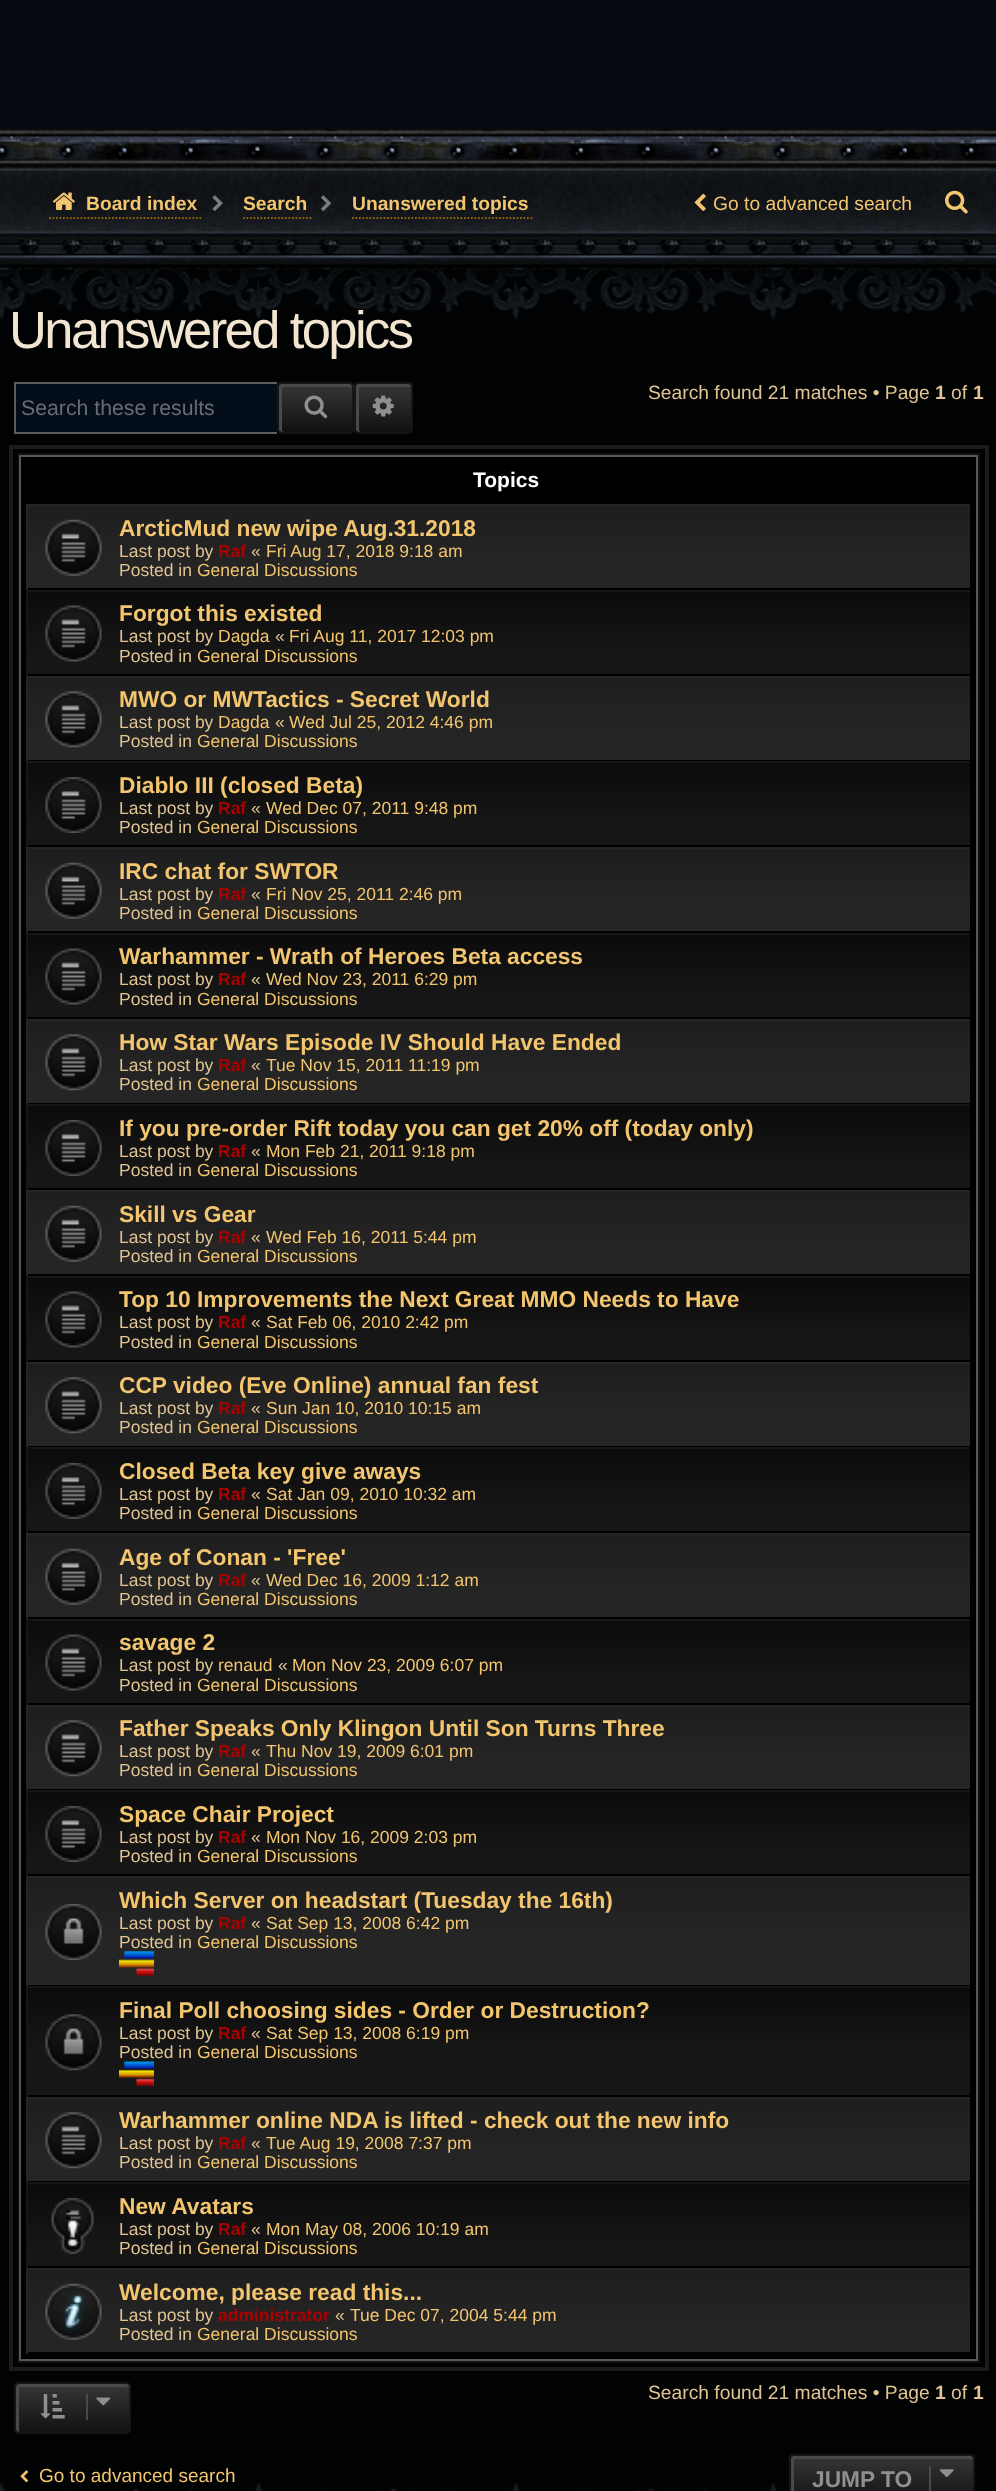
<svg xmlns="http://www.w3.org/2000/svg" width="996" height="2491">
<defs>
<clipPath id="clip1"><rect x="44" y="175" width="159" height="56"/></clipPath>
<clipPath id="clip2"><rect x="238" y="175" width="74" height="56"/></clipPath>
<clipPath id="clip3"><rect x="347" y="175" width="187" height="56"/></clipPath>
<clipPath id="clip4"><rect x="277" y="382" width="77" height="52" rx="5"/></clipPath>
<linearGradient id="g1" gradientUnits="userSpaceOnUse" x1="315" y1="383" x2="315" y2="432"><stop offset="0" stop-color="#373737"/><stop offset="1" stop-color="#111"/></linearGradient>
<clipPath id="clip5"><rect x="354" y="382" width="59" height="52" rx="5"/></clipPath>
<linearGradient id="g2" gradientUnits="userSpaceOnUse" x1="383" y1="383" x2="383" y2="432"><stop offset="0" stop-color="#373737"/><stop offset="1" stop-color="#111"/></linearGradient>
<linearGradient id="g3" gradientUnits="userSpaceOnUse" x1="499" y1="506" x2="499" y2="588"><stop offset="0" stop-color="#1e1e1e"/><stop offset="0.74" stop-color="#252525"/></linearGradient>
<linearGradient id="g4" gradientUnits="userSpaceOnUse" x1="499" y1="591" x2="499" y2="674"><stop offset="0" stop-color="#0b0b0b"/><stop offset="0.74" stop-color="#161616"/></linearGradient>
<linearGradient id="g5" gradientUnits="userSpaceOnUse" x1="499" y1="677" x2="499" y2="760"><stop offset="0" stop-color="#1e1e1e"/><stop offset="0.74" stop-color="#252525"/></linearGradient>
<linearGradient id="g6" gradientUnits="userSpaceOnUse" x1="499" y1="763" x2="499" y2="845"><stop offset="0" stop-color="#0b0b0b"/><stop offset="0.74" stop-color="#161616"/></linearGradient>
<linearGradient id="g7" gradientUnits="userSpaceOnUse" x1="499" y1="849" x2="499" y2="931"><stop offset="0" stop-color="#1e1e1e"/><stop offset="0.74" stop-color="#252525"/></linearGradient>
<linearGradient id="g8" gradientUnits="userSpaceOnUse" x1="499" y1="935" x2="499" y2="1017"><stop offset="0" stop-color="#0b0b0b"/><stop offset="0.74" stop-color="#161616"/></linearGradient>
<linearGradient id="g9" gradientUnits="userSpaceOnUse" x1="499" y1="1020" x2="499" y2="1103"><stop offset="0" stop-color="#1e1e1e"/><stop offset="0.74" stop-color="#252525"/></linearGradient>
<linearGradient id="g10" gradientUnits="userSpaceOnUse" x1="499" y1="1106" x2="499" y2="1188"><stop offset="0" stop-color="#0b0b0b"/><stop offset="0.74" stop-color="#161616"/></linearGradient>
<linearGradient id="g11" gradientUnits="userSpaceOnUse" x1="499" y1="1192" x2="499" y2="1274"><stop offset="0" stop-color="#1e1e1e"/><stop offset="0.74" stop-color="#252525"/></linearGradient>
<linearGradient id="g12" gradientUnits="userSpaceOnUse" x1="499" y1="1278" x2="499" y2="1360"><stop offset="0" stop-color="#0b0b0b"/><stop offset="0.74" stop-color="#161616"/></linearGradient>
<linearGradient id="g13" gradientUnits="userSpaceOnUse" x1="499" y1="1363" x2="499" y2="1446"><stop offset="0" stop-color="#1e1e1e"/><stop offset="0.74" stop-color="#252525"/></linearGradient>
<linearGradient id="g14" gradientUnits="userSpaceOnUse" x1="499" y1="1449" x2="499" y2="1531"><stop offset="0" stop-color="#0b0b0b"/><stop offset="0.74" stop-color="#161616"/></linearGradient>
<linearGradient id="g15" gradientUnits="userSpaceOnUse" x1="499" y1="1535" x2="499" y2="1617"><stop offset="0" stop-color="#1e1e1e"/><stop offset="0.74" stop-color="#252525"/></linearGradient>
<linearGradient id="g16" gradientUnits="userSpaceOnUse" x1="499" y1="1621" x2="499" y2="1703"><stop offset="0" stop-color="#0b0b0b"/><stop offset="0.74" stop-color="#161616"/></linearGradient>
<linearGradient id="g17" gradientUnits="userSpaceOnUse" x1="499" y1="1706" x2="499" y2="1789"><stop offset="0" stop-color="#1e1e1e"/><stop offset="0.74" stop-color="#252525"/></linearGradient>
<linearGradient id="g18" gradientUnits="userSpaceOnUse" x1="499" y1="1792" x2="499" y2="1874"><stop offset="0" stop-color="#0b0b0b"/><stop offset="0.74" stop-color="#161616"/></linearGradient>
<linearGradient id="g19" gradientUnits="userSpaceOnUse" x1="499" y1="1878" x2="499" y2="1985"><stop offset="0" stop-color="#1e1e1e"/><stop offset="0.57" stop-color="#252525"/></linearGradient>
<linearGradient id="g20" gradientUnits="userSpaceOnUse" x1="499" y1="1988" x2="499" y2="2095"><stop offset="0" stop-color="#0b0b0b"/><stop offset="0.57" stop-color="#161616"/></linearGradient>
<linearGradient id="g21" gradientUnits="userSpaceOnUse" x1="499" y1="2098" x2="499" y2="2181"><stop offset="0" stop-color="#1e1e1e"/><stop offset="0.74" stop-color="#252525"/></linearGradient>
<linearGradient id="g22" gradientUnits="userSpaceOnUse" x1="499" y1="2184" x2="499" y2="2266"><stop offset="0" stop-color="#0b0b0b"/><stop offset="0.74" stop-color="#161616"/></linearGradient>
<linearGradient id="g23" gradientUnits="userSpaceOnUse" x1="499" y1="2270" x2="499" y2="2352"><stop offset="0" stop-color="#1e1e1e"/><stop offset="0.74" stop-color="#252525"/></linearGradient>
<clipPath id="clip6"><rect x="14" y="2382" width="117" height="52" rx="5"/></clipPath>
<linearGradient id="g24" gradientUnits="userSpaceOnUse" x1="73" y1="2384" x2="73" y2="2433"><stop offset="0" stop-color="#373737"/><stop offset="1" stop-color="#111"/></linearGradient>
<clipPath id="clip7"><rect x="789" y="2454" width="186" height="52" rx="5"/></clipPath>
<linearGradient id="g25" gradientUnits="userSpaceOnUse" x1="882" y1="2455" x2="882" y2="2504"><stop offset="0" stop-color="#373737"/><stop offset="1" stop-color="#111"/></linearGradient>
</defs>
<rect width="100%" height="100%" fill="#050a12"/>
<rect x="-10" y="137" width="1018" height="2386" fill="#000000b3" filter="blur(10.5px)"/>
<image x="0" y="129" width="996" height="38" href="media/1.png"/>
<image x="0" y="166" width="996" height="74" href="media/2.png"/>
<image x="52" y="192" width="23" height="18" href="media/3.png"/>
<text x="86" y="210" style="font-family:Liberation Sans;font-size:19.25px;font-weight:bold;fill:#f2c56e">Board index</text>
<g clip-path="url(#clip1)">
<path d="M49 218h159" fill="none" stroke="#8c6407" stroke-width="1.8" stroke-dasharray="1.75 1.75"/>
</g>
<image x="212" y="195" width="11" height="16" href="media/4.png"/>
<text x="243" y="210" style="font-family:Liberation Sans;font-size:19.25px;font-weight:bold;fill:#f2c56e">Search</text>
<g clip-path="url(#clip2)">
<path d="M243 218h74" fill="none" stroke="#8c6407" stroke-width="1.8" stroke-dasharray="1.75 1.75"/>
</g>
<image x="321" y="195" width="11" height="16" href="media/5.png"/>
<text x="352" y="210" style="font-family:Liberation Sans;font-size:19.25px;font-weight:bold;fill:#f2c56e">Unanswered topics</text>
<g clip-path="url(#clip3)">
<path d="M352 218h187" fill="none" stroke="#8c6407" stroke-width="1.8" stroke-dasharray="1.75 1.75"/>
</g>
<image x="694" y="193" width="12" height="18" href="media/6.png"/>
<text x="713" y="210" style="font-family:Liberation Sans;font-size:19.25px;fill:#f2c56e">Go to advanced search</text>
<image x="945" y="190" width="23" height="24" href="media/7.png"/>
<rect y="269" width="996" height="2222" fill="#010203"/>
<image x="0" y="239" width="996" height="2252" href="media/8.png"/>
<text x="9" y="348" style="font-family:Liberation Sans;font-size:52.5px;letter-spacing:-2.6px;fill:#f3e6d0">Unanswered topics</text>
<text x="648" y="399" style="font-family:Liberation Sans;font-size:19.25px;fill:#e1c492">Search found 21 matches • Page</text>
<text x="935" y="399" style="font-family:Liberation Sans;font-size:19.25px;font-weight:bold;fill:#e1c492">1</text>
<text x="951" y="399" style="font-family:Liberation Sans;font-size:19.25px;fill:#e1c492">of</text>
<text x="973" y="399" style="font-family:Liberation Sans;font-size:19.25px;font-weight:bold;fill:#e1c492">1</text>
<rect x="16" y="384" width="261" height="48" fill="#040d1a"/>
<rect x="14" y="382" width="263" height="2" fill="#5d5d5d"/>
<rect x="14" y="432" width="263" height="2" fill="#5d5d5d"/>
<rect x="14" y="382" width="2" height="52" fill="#5d5d5d"/>
<text x="21" y="415" style="font-family:Liberation Sans;font-size:21.25px;fill:#686d73">Search these results</text>
<g clip-path="url(#clip4)">
<rect x="277" y="383" width="77" height="49" fill="url(#g1)"/>
</g>
<path d="M284 387h66l2 1c0-8-10-5-15-5h-44c-14 0-15-3-15 11v27c0 7-2 11 6 11c-1 0-2-1-2-2v-42z" fill="#494949"/>
<rect x="278" y="383" width="75" height="50" rx="4" fill="none" stroke="#161616" stroke-width="2"/>
<image x="304" y="395" width="24" height="24" href="media/9.png"/>
<g clip-path="url(#clip5)">
<rect x="354" y="383" width="59" height="49" fill="url(#g2)"/>
</g>
<path d="M360 387h50l1 1v-1c0-2-2-4-4-4h-48c-2 0-4 2-4 4v41c0 2 2 4 4 4h1l-1-2v-42z" fill="#494949"/>
<rect x="355" y="383" width="57" height="50" rx="4" fill="none" stroke="#161616" stroke-width="2"/>
<image x="372" y="395" width="22" height="22" href="media/10.png"/>
<rect x="8" y="444" width="982" height="1928" fill="none" stroke="#000" stroke-width="2"/>
<rect x="13" y="449" width="971" height="1918" fill="none" stroke="#000" stroke-width="2"/>
<rect x="11" y="447" width="976" height="1922" fill="none" stroke="#1b1b1b" stroke-width="4"/>
<rect x="19" y="454" width="960" height="1908" fill="none" stroke="#111" stroke-width="2"/>
<rect x="20" y="456" width="957" height="1904" fill="#000" stroke="#575757" stroke-width="2"/>
<text x="473" y="487" style="font-family:Liberation Sans;font-size:21px;font-weight:bold;fill:#fff">Topics</text>
<rect x="28" y="504" width="942" height="2" fill="#252525"/>
<rect x="28" y="506" width="942" height="82" fill="url(#g3)"/>
<rect x="26" y="504" width="2" height="86" fill="#252525"/>
<image x="45" y="519" width="57" height="57" href="media/11.png"/>
<text x="119" y="536" style="font-family:Liberation Sans;font-size:22.75px;font-weight:bold;fill:#f2c56e">ArcticMud new wipe Aug.31.2018</text>
<text x="119" y="557" style="font-family:Liberation Sans;font-size:17.5px;fill:#e1c492">Last post by</text>
<text x="218" y="557" style="font-family:Liberation Sans;font-size:17.5px;font-weight:bold;fill:#a00">Raf</text>
<text x="251" y="557" style="font-family:Liberation Sans;font-size:17.5px;fill:#e1c492">«</text>
<text x="266" y="557" style="font-family:Liberation Sans;font-size:17.5px;fill:#f2c56e">Fri Aug 17, 2018 9:18 am</text>
<text x="119" y="576" style="font-family:Liberation Sans;font-size:17.5px;fill:#e1c492">Posted in</text>
<text x="197" y="576" style="font-family:Liberation Sans;font-size:17.5px;fill:#f2c56e">General Discussions</text>
<rect x="28" y="590" width="942" height="2" fill="#161616"/>
<rect x="28" y="592" width="942" height="82" fill="url(#g4)"/>
<rect x="26" y="590" width="2" height="86" fill="#161616"/>
<image x="45" y="605" width="57" height="57" href="media/12.png"/>
<text x="119" y="621" style="font-family:Liberation Sans;font-size:22.75px;font-weight:bold;fill:#f2c56e">Forgot this existed</text>
<text x="119" y="642" style="font-family:Liberation Sans;font-size:17.5px;fill:#e1c492">Last post by</text>
<text x="218" y="642" style="font-family:Liberation Sans;font-size:17.5px;fill:#f2c56e">Dagda</text>
<text x="275" y="642" style="font-family:Liberation Sans;font-size:17.5px;fill:#e1c492">«</text>
<text x="289" y="642" style="font-family:Liberation Sans;font-size:17.5px;fill:#f2c56e">Fri Aug 11, 2017 12:03 pm</text>
<text x="119" y="662" style="font-family:Liberation Sans;font-size:17.5px;fill:#e1c492">Posted in</text>
<text x="197" y="662" style="font-family:Liberation Sans;font-size:17.5px;fill:#f2c56e">General Discussions</text>
<rect x="28" y="678" width="942" height="82" fill="url(#g5)"/>
<rect x="26" y="676" width="945" height="2" fill="#252525"/>
<rect x="970" y="676" width="1" height="2" fill="#000"/>
<rect x="26" y="676" width="2" height="85" fill="#252525"/>
<image x="45" y="691" width="57" height="57" href="media/13.png"/>
<text x="119" y="707" style="font-family:Liberation Sans;font-size:22.75px;font-weight:bold;fill:#f2c56e">MWO or MWTactics - Secret World</text>
<text x="119" y="728" style="font-family:Liberation Sans;font-size:17.5px;fill:#e1c492">Last post by</text>
<text x="218" y="728" style="font-family:Liberation Sans;font-size:17.5px;fill:#f2c56e">Dagda</text>
<text x="275" y="728" style="font-family:Liberation Sans;font-size:17.5px;fill:#e1c492">«</text>
<text x="289" y="728" style="font-family:Liberation Sans;font-size:17.5px;fill:#f2c56e">Wed Jul 25, 2012 4:46 pm</text>
<text x="119" y="747" style="font-family:Liberation Sans;font-size:17.5px;fill:#e1c492">Posted in</text>
<text x="197" y="747" style="font-family:Liberation Sans;font-size:17.5px;fill:#f2c56e">General Discussions</text>
<rect x="28" y="761" width="942" height="2" fill="#161616"/>
<rect x="28" y="763" width="942" height="82" fill="url(#g6)"/>
<rect x="26" y="761" width="2" height="86" fill="#161616"/>
<image x="45" y="777" width="57" height="56" href="media/14.png"/>
<text x="119" y="793" style="font-family:Liberation Sans;font-size:22.75px;font-weight:bold;fill:#f2c56e">Diablo III (closed Beta)</text>
<text x="119" y="814" style="font-family:Liberation Sans;font-size:17.5px;fill:#e1c492">Last post by</text>
<text x="218" y="814" style="font-family:Liberation Sans;font-size:17.5px;font-weight:bold;fill:#a00">Raf</text>
<text x="251" y="814" style="font-family:Liberation Sans;font-size:17.5px;fill:#e1c492">«</text>
<text x="266" y="814" style="font-family:Liberation Sans;font-size:17.5px;fill:#f2c56e">Wed Dec 07, 2011 9:48 pm</text>
<text x="119" y="833" style="font-family:Liberation Sans;font-size:17.5px;fill:#e1c492">Posted in</text>
<text x="197" y="833" style="font-family:Liberation Sans;font-size:17.5px;fill:#f2c56e">General Discussions</text>
<rect x="28" y="847" width="942" height="2" fill="#252525"/>
<rect x="28" y="849" width="942" height="82" fill="url(#g7)"/>
<rect x="26" y="847" width="2" height="86" fill="#252525"/>
<image x="45" y="862" width="57" height="57" href="media/11.png"/>
<text x="119" y="879" style="font-family:Liberation Sans;font-size:22.75px;font-weight:bold;fill:#f2c56e">IRC chat for SWTOR</text>
<text x="119" y="900" style="font-family:Liberation Sans;font-size:17.5px;fill:#e1c492">Last post by</text>
<text x="218" y="900" style="font-family:Liberation Sans;font-size:17.5px;font-weight:bold;fill:#a00">Raf</text>
<text x="251" y="900" style="font-family:Liberation Sans;font-size:17.5px;fill:#e1c492">«</text>
<text x="266" y="900" style="font-family:Liberation Sans;font-size:17.5px;fill:#f2c56e">Fri Nov 25, 2011 2:46 pm</text>
<text x="119" y="919" style="font-family:Liberation Sans;font-size:17.5px;fill:#e1c492">Posted in</text>
<text x="197" y="919" style="font-family:Liberation Sans;font-size:17.5px;fill:#f2c56e">General Discussions</text>
<rect x="28" y="933" width="942" height="2" fill="#161616"/>
<rect x="28" y="935" width="942" height="82" fill="url(#g8)"/>
<rect x="26" y="933" width="2" height="86" fill="#161616"/>
<image x="45" y="948" width="57" height="57" href="media/15.png"/>
<text x="119" y="964" style="font-family:Liberation Sans;font-size:22.75px;font-weight:bold;fill:#f2c56e">Warhammer - Wrath of Heroes Beta access</text>
<text x="119" y="985" style="font-family:Liberation Sans;font-size:17.5px;fill:#e1c492">Last post by</text>
<text x="218" y="985" style="font-family:Liberation Sans;font-size:17.5px;font-weight:bold;fill:#a00">Raf</text>
<text x="251" y="985" style="font-family:Liberation Sans;font-size:17.5px;fill:#e1c492">«</text>
<text x="266" y="985" style="font-family:Liberation Sans;font-size:17.5px;fill:#f2c56e">Wed Nov 23, 2011 6:29 pm</text>
<text x="119" y="1005" style="font-family:Liberation Sans;font-size:17.5px;fill:#e1c492">Posted in</text>
<text x="197" y="1005" style="font-family:Liberation Sans;font-size:17.5px;fill:#f2c56e">General Discussions</text>
<rect x="28" y="1021" width="942" height="82" fill="url(#g9)"/>
<rect x="26" y="1019" width="945" height="2" fill="#252525"/>
<rect x="970" y="1019" width="1" height="2" fill="#000"/>
<rect x="26" y="1019" width="2" height="85" fill="#252525"/>
<image x="45" y="1034" width="57" height="57" href="media/13.png"/>
<text x="119" y="1050" style="font-family:Liberation Sans;font-size:22.75px;font-weight:bold;fill:#f2c56e">How Star Wars Episode IV Should Have Ended</text>
<text x="119" y="1071" style="font-family:Liberation Sans;font-size:17.5px;fill:#e1c492">Last post by</text>
<text x="218" y="1071" style="font-family:Liberation Sans;font-size:17.5px;font-weight:bold;fill:#a00">Raf</text>
<text x="251" y="1071" style="font-family:Liberation Sans;font-size:17.5px;fill:#e1c492">«</text>
<text x="266" y="1071" style="font-family:Liberation Sans;font-size:17.5px;fill:#f2c56e">Tue Nov 15, 2011 11:19 pm</text>
<text x="119" y="1090" style="font-family:Liberation Sans;font-size:17.5px;fill:#e1c492">Posted in</text>
<text x="197" y="1090" style="font-family:Liberation Sans;font-size:17.5px;fill:#f2c56e">General Discussions</text>
<rect x="28" y="1104" width="942" height="2" fill="#161616"/>
<rect x="28" y="1106" width="942" height="82" fill="url(#g10)"/>
<rect x="26" y="1104" width="2" height="86" fill="#161616"/>
<image x="45" y="1120" width="57" height="56" href="media/14.png"/>
<text x="119" y="1136" style="font-family:Liberation Sans;font-size:22.75px;font-weight:bold;fill:#f2c56e">If you pre-order Rift today you can get 20% off (today only)</text>
<text x="119" y="1157" style="font-family:Liberation Sans;font-size:17.5px;fill:#e1c492">Last post by</text>
<text x="218" y="1157" style="font-family:Liberation Sans;font-size:17.5px;font-weight:bold;fill:#a00">Raf</text>
<text x="251" y="1157" style="font-family:Liberation Sans;font-size:17.5px;fill:#e1c492">«</text>
<text x="266" y="1157" style="font-family:Liberation Sans;font-size:17.5px;fill:#f2c56e">Mon Feb 21, 2011 9:18 pm</text>
<text x="119" y="1176" style="font-family:Liberation Sans;font-size:17.5px;fill:#e1c492">Posted in</text>
<text x="197" y="1176" style="font-family:Liberation Sans;font-size:17.5px;fill:#f2c56e">General Discussions</text>
<rect x="28" y="1190" width="942" height="2" fill="#252525"/>
<rect x="28" y="1192" width="942" height="82" fill="url(#g11)"/>
<rect x="26" y="1190" width="2" height="86" fill="#252525"/>
<image x="45" y="1205" width="57" height="57" href="media/11.png"/>
<text x="119" y="1222" style="font-family:Liberation Sans;font-size:22.75px;font-weight:bold;fill:#f2c56e">Skill vs Gear</text>
<text x="119" y="1243" style="font-family:Liberation Sans;font-size:17.5px;fill:#e1c492">Last post by</text>
<text x="218" y="1243" style="font-family:Liberation Sans;font-size:17.5px;font-weight:bold;fill:#a00">Raf</text>
<text x="251" y="1243" style="font-family:Liberation Sans;font-size:17.5px;fill:#e1c492">«</text>
<text x="266" y="1243" style="font-family:Liberation Sans;font-size:17.5px;fill:#f2c56e">Wed Feb 16, 2011 5:44 pm</text>
<text x="119" y="1262" style="font-family:Liberation Sans;font-size:17.5px;fill:#e1c492">Posted in</text>
<text x="197" y="1262" style="font-family:Liberation Sans;font-size:17.5px;fill:#f2c56e">General Discussions</text>
<rect x="28" y="1276" width="942" height="2" fill="#161616"/>
<rect x="28" y="1278" width="942" height="82" fill="url(#g12)"/>
<rect x="26" y="1276" width="2" height="86" fill="#161616"/>
<image x="45" y="1291" width="57" height="57" href="media/15.png"/>
<text x="119" y="1307" style="font-family:Liberation Sans;font-size:22.75px;font-weight:bold;fill:#f2c56e">Top 10 Improvements the Next Great MMO Needs to Have</text>
<text x="119" y="1328" style="font-family:Liberation Sans;font-size:17.5px;fill:#e1c492">Last post by</text>
<text x="218" y="1328" style="font-family:Liberation Sans;font-size:17.5px;font-weight:bold;fill:#a00">Raf</text>
<text x="251" y="1328" style="font-family:Liberation Sans;font-size:17.5px;fill:#e1c492">«</text>
<text x="266" y="1328" style="font-family:Liberation Sans;font-size:17.5px;fill:#f2c56e">Sat Feb 06, 2010 2:42 pm</text>
<text x="119" y="1348" style="font-family:Liberation Sans;font-size:17.5px;fill:#e1c492">Posted in</text>
<text x="197" y="1348" style="font-family:Liberation Sans;font-size:17.5px;fill:#f2c56e">General Discussions</text>
<rect x="28" y="1364" width="942" height="82" fill="url(#g13)"/>
<rect x="26" y="1362" width="945" height="2" fill="#252525"/>
<rect x="970" y="1362" width="1" height="2" fill="#000"/>
<rect x="26" y="1362" width="2" height="85" fill="#252525"/>
<image x="45" y="1377" width="57" height="57" href="media/13.png"/>
<text x="119" y="1393" style="font-family:Liberation Sans;font-size:22.75px;font-weight:bold;fill:#f2c56e">CCP video (Eve Online) annual fan fest</text>
<text x="119" y="1414" style="font-family:Liberation Sans;font-size:17.5px;fill:#e1c492">Last post by</text>
<text x="218" y="1414" style="font-family:Liberation Sans;font-size:17.5px;font-weight:bold;fill:#a00">Raf</text>
<text x="251" y="1414" style="font-family:Liberation Sans;font-size:17.5px;fill:#e1c492">«</text>
<text x="266" y="1414" style="font-family:Liberation Sans;font-size:17.5px;fill:#f2c56e">Sun Jan 10, 2010 10:15 am</text>
<text x="119" y="1433" style="font-family:Liberation Sans;font-size:17.5px;fill:#e1c492">Posted in</text>
<text x="197" y="1433" style="font-family:Liberation Sans;font-size:17.5px;fill:#f2c56e">General Discussions</text>
<rect x="28" y="1447" width="942" height="2" fill="#161616"/>
<rect x="28" y="1449" width="942" height="82" fill="url(#g14)"/>
<rect x="26" y="1447" width="2" height="86" fill="#161616"/>
<image x="45" y="1463" width="57" height="56" href="media/14.png"/>
<text x="119" y="1479" style="font-family:Liberation Sans;font-size:22.75px;font-weight:bold;fill:#f2c56e">Closed Beta key give aways</text>
<text x="119" y="1500" style="font-family:Liberation Sans;font-size:17.5px;fill:#e1c492">Last post by</text>
<text x="218" y="1500" style="font-family:Liberation Sans;font-size:17.5px;font-weight:bold;fill:#a00">Raf</text>
<text x="251" y="1500" style="font-family:Liberation Sans;font-size:17.5px;fill:#e1c492">«</text>
<text x="266" y="1500" style="font-family:Liberation Sans;font-size:17.5px;fill:#f2c56e">Sat Jan 09, 2010 10:32 am</text>
<text x="119" y="1519" style="font-family:Liberation Sans;font-size:17.5px;fill:#e1c492">Posted in</text>
<text x="197" y="1519" style="font-family:Liberation Sans;font-size:17.5px;fill:#f2c56e">General Discussions</text>
<rect x="28" y="1533" width="942" height="2" fill="#252525"/>
<rect x="28" y="1535" width="942" height="82" fill="url(#g15)"/>
<rect x="26" y="1533" width="2" height="86" fill="#252525"/>
<image x="45" y="1548" width="57" height="57" href="media/11.png"/>
<text x="119" y="1565" style="font-family:Liberation Sans;font-size:22.75px;font-weight:bold;fill:#f2c56e">Age of Conan - 'Free'</text>
<text x="119" y="1586" style="font-family:Liberation Sans;font-size:17.5px;fill:#e1c492">Last post by</text>
<text x="218" y="1586" style="font-family:Liberation Sans;font-size:17.5px;font-weight:bold;fill:#a00">Raf</text>
<text x="251" y="1586" style="font-family:Liberation Sans;font-size:17.5px;fill:#e1c492">«</text>
<text x="266" y="1586" style="font-family:Liberation Sans;font-size:17.5px;fill:#f2c56e">Wed Dec 16, 2009 1:12 am</text>
<text x="119" y="1605" style="font-family:Liberation Sans;font-size:17.5px;fill:#e1c492">Posted in</text>
<text x="197" y="1605" style="font-family:Liberation Sans;font-size:17.5px;fill:#f2c56e">General Discussions</text>
<rect x="28" y="1619" width="942" height="2" fill="#161616"/>
<rect x="28" y="1621" width="942" height="82" fill="url(#g16)"/>
<rect x="26" y="1619" width="2" height="86" fill="#161616"/>
<image x="45" y="1634" width="57" height="57" href="media/15.png"/>
<text x="119" y="1650" style="font-family:Liberation Sans;font-size:22.75px;font-weight:bold;fill:#f2c56e">savage 2</text>
<text x="119" y="1671" style="font-family:Liberation Sans;font-size:17.5px;fill:#e1c492">Last post by</text>
<text x="218" y="1671" style="font-family:Liberation Sans;font-size:17.5px;fill:#f2c56e">renaud</text>
<text x="278" y="1671" style="font-family:Liberation Sans;font-size:17.5px;fill:#e1c492">«</text>
<text x="292" y="1671" style="font-family:Liberation Sans;font-size:17.5px;fill:#f2c56e">Mon Nov 23, 2009 6:07 pm</text>
<text x="119" y="1691" style="font-family:Liberation Sans;font-size:17.5px;fill:#e1c492">Posted in</text>
<text x="197" y="1691" style="font-family:Liberation Sans;font-size:17.5px;fill:#f2c56e">General Discussions</text>
<rect x="28" y="1707" width="942" height="82" fill="url(#g17)"/>
<rect x="26" y="1705" width="945" height="2" fill="#252525"/>
<rect x="970" y="1705" width="1" height="2" fill="#000"/>
<rect x="26" y="1705" width="2" height="85" fill="#252525"/>
<image x="45" y="1720" width="57" height="57" href="media/13.png"/>
<text x="119" y="1736" style="font-family:Liberation Sans;font-size:22.75px;font-weight:bold;fill:#f2c56e">Father Speaks Only Klingon Until Son Turns Three</text>
<text x="119" y="1757" style="font-family:Liberation Sans;font-size:17.5px;fill:#e1c492">Last post by</text>
<text x="218" y="1757" style="font-family:Liberation Sans;font-size:17.5px;font-weight:bold;fill:#a00">Raf</text>
<text x="251" y="1757" style="font-family:Liberation Sans;font-size:17.5px;fill:#e1c492">«</text>
<text x="266" y="1757" style="font-family:Liberation Sans;font-size:17.5px;fill:#f2c56e">Thu Nov 19, 2009 6:01 pm</text>
<text x="119" y="1776" style="font-family:Liberation Sans;font-size:17.5px;fill:#e1c492">Posted in</text>
<text x="197" y="1776" style="font-family:Liberation Sans;font-size:17.5px;fill:#f2c56e">General Discussions</text>
<rect x="28" y="1790" width="942" height="2" fill="#161616"/>
<rect x="28" y="1792" width="942" height="82" fill="url(#g18)"/>
<rect x="26" y="1790" width="2" height="86" fill="#161616"/>
<image x="45" y="1806" width="57" height="56" href="media/14.png"/>
<text x="119" y="1822" style="font-family:Liberation Sans;font-size:22.75px;font-weight:bold;fill:#f2c56e">Space Chair Project</text>
<text x="119" y="1843" style="font-family:Liberation Sans;font-size:17.5px;fill:#e1c492">Last post by</text>
<text x="218" y="1843" style="font-family:Liberation Sans;font-size:17.5px;font-weight:bold;fill:#a00">Raf</text>
<text x="251" y="1843" style="font-family:Liberation Sans;font-size:17.5px;fill:#e1c492">«</text>
<text x="266" y="1843" style="font-family:Liberation Sans;font-size:17.5px;fill:#f2c56e">Mon Nov 16, 2009 2:03 pm</text>
<text x="119" y="1862" style="font-family:Liberation Sans;font-size:17.5px;fill:#e1c492">Posted in</text>
<text x="197" y="1862" style="font-family:Liberation Sans;font-size:17.5px;fill:#f2c56e">General Discussions</text>
<rect x="28" y="1876" width="942" height="2" fill="#252525"/>
<rect x="28" y="1878" width="942" height="107" fill="url(#g19)"/>
<rect x="26" y="1876" width="2" height="110" fill="#252525"/>
<image x="45" y="1904" width="57" height="56" href="media/16.png"/>
<text x="119" y="1908" style="font-family:Liberation Sans;font-size:22.75px;font-weight:bold;fill:#f2c56e">Which Server on headstart (Tuesday the 16th)</text>
<text x="119" y="1929" style="font-family:Liberation Sans;font-size:17.5px;fill:#e1c492">Last post by</text>
<text x="218" y="1929" style="font-family:Liberation Sans;font-size:17.5px;font-weight:bold;fill:#a00">Raf</text>
<text x="251" y="1929" style="font-family:Liberation Sans;font-size:17.5px;fill:#e1c492">«</text>
<text x="266" y="1929" style="font-family:Liberation Sans;font-size:17.5px;fill:#f2c56e">Sat Sep 13, 2008 6:42 pm</text>
<text x="119" y="1948" style="font-family:Liberation Sans;font-size:17.5px;fill:#e1c492">Posted in</text>
<text x="197" y="1948" style="font-family:Liberation Sans;font-size:17.5px;fill:#f2c56e">General Discussions</text>
<image x="119" y="1951" width="35" height="25" href="media/17.png"/>
<rect x="28" y="1986" width="942" height="2" fill="#161616"/>
<rect x="28" y="1988" width="942" height="107" fill="url(#g20)"/>
<rect x="26" y="1986" width="2" height="111" fill="#161616"/>
<image x="45" y="2014" width="57" height="57" href="media/18.png"/>
<text x="119" y="2018" style="font-family:Liberation Sans;font-size:22.75px;font-weight:bold;fill:#f2c56e">Final Poll choosing sides - Order or Destruction?</text>
<text x="119" y="2039" style="font-family:Liberation Sans;font-size:17.5px;fill:#e1c492">Last post by</text>
<text x="218" y="2039" style="font-family:Liberation Sans;font-size:17.5px;font-weight:bold;fill:#a00">Raf</text>
<text x="251" y="2039" style="font-family:Liberation Sans;font-size:17.5px;fill:#e1c492">«</text>
<text x="266" y="2039" style="font-family:Liberation Sans;font-size:17.5px;fill:#f2c56e">Sat Sep 13, 2008 6:19 pm</text>
<text x="119" y="2058" style="font-family:Liberation Sans;font-size:17.5px;fill:#e1c492">Posted in</text>
<text x="197" y="2058" style="font-family:Liberation Sans;font-size:17.5px;fill:#f2c56e">General Discussions</text>
<image x="119" y="2061" width="35" height="25" href="media/19.png"/>
<rect x="28" y="2099" width="942" height="82" fill="url(#g21)"/>
<rect x="26" y="2097" width="945" height="2" fill="#252525"/>
<rect x="970" y="2097" width="1" height="2" fill="#000"/>
<rect x="26" y="2097" width="2" height="85" fill="#252525"/>
<image x="45" y="2112" width="57" height="57" href="media/13.png"/>
<text x="119" y="2128" style="font-family:Liberation Sans;font-size:22.75px;font-weight:bold;fill:#f2c56e">Warhammer online NDA is lifted - check out the new info</text>
<text x="119" y="2149" style="font-family:Liberation Sans;font-size:17.5px;fill:#e1c492">Last post by</text>
<text x="218" y="2149" style="font-family:Liberation Sans;font-size:17.5px;font-weight:bold;fill:#a00">Raf</text>
<text x="251" y="2149" style="font-family:Liberation Sans;font-size:17.5px;fill:#e1c492">«</text>
<text x="266" y="2149" style="font-family:Liberation Sans;font-size:17.5px;fill:#f2c56e">Tue Aug 19, 2008 7:37 pm</text>
<text x="119" y="2168" style="font-family:Liberation Sans;font-size:17.5px;fill:#e1c492">Posted in</text>
<text x="197" y="2168" style="font-family:Liberation Sans;font-size:17.5px;fill:#f2c56e">General Discussions</text>
<rect x="28" y="2182" width="942" height="2" fill="#161616"/>
<rect x="28" y="2184" width="942" height="82" fill="url(#g22)"/>
<rect x="26" y="2182" width="2" height="86" fill="#161616"/>
<image x="51" y="2198" width="44" height="56" href="media/20.png"/>
<text x="119" y="2214" style="font-family:Liberation Sans;font-size:22.75px;font-weight:bold;fill:#f2c56e">New Avatars</text>
<text x="119" y="2235" style="font-family:Liberation Sans;font-size:17.5px;fill:#e1c492">Last post by</text>
<text x="218" y="2235" style="font-family:Liberation Sans;font-size:17.5px;font-weight:bold;fill:#a00">Raf</text>
<text x="251" y="2235" style="font-family:Liberation Sans;font-size:17.5px;fill:#e1c492">«</text>
<text x="266" y="2235" style="font-family:Liberation Sans;font-size:17.5px;fill:#f2c56e">Mon May 08, 2006 10:19 am</text>
<text x="119" y="2254" style="font-family:Liberation Sans;font-size:17.5px;fill:#e1c492">Posted in</text>
<text x="197" y="2254" style="font-family:Liberation Sans;font-size:17.5px;fill:#f2c56e">General Discussions</text>
<rect x="28" y="2268" width="942" height="2" fill="#252525"/>
<rect x="28" y="2270" width="942" height="82" fill="url(#g23)"/>
<rect x="26" y="2268" width="2" height="86" fill="#252525"/>
<image x="45" y="2283" width="57" height="57" href="media/21.png"/>
<text x="119" y="2300" style="font-family:Liberation Sans;font-size:22.75px;font-weight:bold;fill:#f2c56e">Welcome, please read this...</text>
<text x="119" y="2321" style="font-family:Liberation Sans;font-size:17.5px;fill:#e1c492">Last post by</text>
<text x="218" y="2321" style="font-family:Liberation Sans;font-size:17.5px;font-weight:bold;fill:#a00">administrator</text>
<text x="335" y="2321" style="font-family:Liberation Sans;font-size:17.5px;fill:#e1c492">«</text>
<text x="350" y="2321" style="font-family:Liberation Sans;font-size:17.5px;fill:#f2c56e">Tue Dec 07, 2004 5:44 pm</text>
<text x="119" y="2340" style="font-family:Liberation Sans;font-size:17.5px;fill:#e1c492">Posted in</text>
<text x="197" y="2340" style="font-family:Liberation Sans;font-size:17.5px;fill:#f2c56e">General Discussions</text>
<g clip-path="url(#clip6)">
<rect x="14" y="2384" width="117" height="49" fill="url(#g24)"/>
</g>
<path d="M21 2387h107c1 0 2 1 2 2v-1c0-2-2-4-4-4h-106c-2 0-4 2-4 4v41c0 2 2 4 4 4h106c1 0 2 0 3-1h-108c-1 0-2 0-2-1v-42c0-1 1-2 2-2z" fill="#494949"/>
<rect x="15" y="2383" width="115" height="50" rx="4" fill="none" stroke="#161616" stroke-width="2"/>
<image x="40" y="2394" width="25" height="25" href="media/22.png"/>
<rect x="86" y="2394" width="2" height="26" fill="#494949"/>
<image x="96" y="2397" width="15" height="9" href="media/23.png"/>
<text x="648" y="2399" style="font-family:Liberation Sans;font-size:19.25px;fill:#e1c492">Search found 21 matches • Page</text>
<text x="935" y="2399" style="font-family:Liberation Sans;font-size:19.25px;font-weight:bold;fill:#e1c492">1</text>
<text x="951" y="2399" style="font-family:Liberation Sans;font-size:19.25px;fill:#e1c492">of</text>
<text x="973" y="2399" style="font-family:Liberation Sans;font-size:19.25px;font-weight:bold;fill:#e1c492">1</text>
<image x="20" y="2470" width="9" height="13" href="media/24.png"/>
<text x="39" y="2482" style="font-family:Liberation Sans;font-size:19px;fill:#f2c56e">Go to advanced search</text>
<g clip-path="url(#clip7)">
<rect x="789" y="2455" width="186" height="36" fill="url(#g25)"/>
</g>
<path d="M796 2459h175c1 0 2 1 2 1v-1c0-2-2-4-4-4h-174c-2 0-4 2-4 4v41c0 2 2 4 4 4h1c-1 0-2-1-2-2v-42z" fill="#494949"/>
<rect x="790" y="2455" width="184" height="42" rx="4" fill="none" stroke="#161616" stroke-width="2"/>
<text x="812" y="2487" style="font-family:Liberation Sans;font-size:22.75px;font-weight:bold;fill:#8f8f8f">JUMP TO</text>
<rect x="929" y="2466" width="2" height="25" fill="#494949"/>
<image x="939" y="2469" width="15" height="8" href="media/25.png"/>
</svg>
